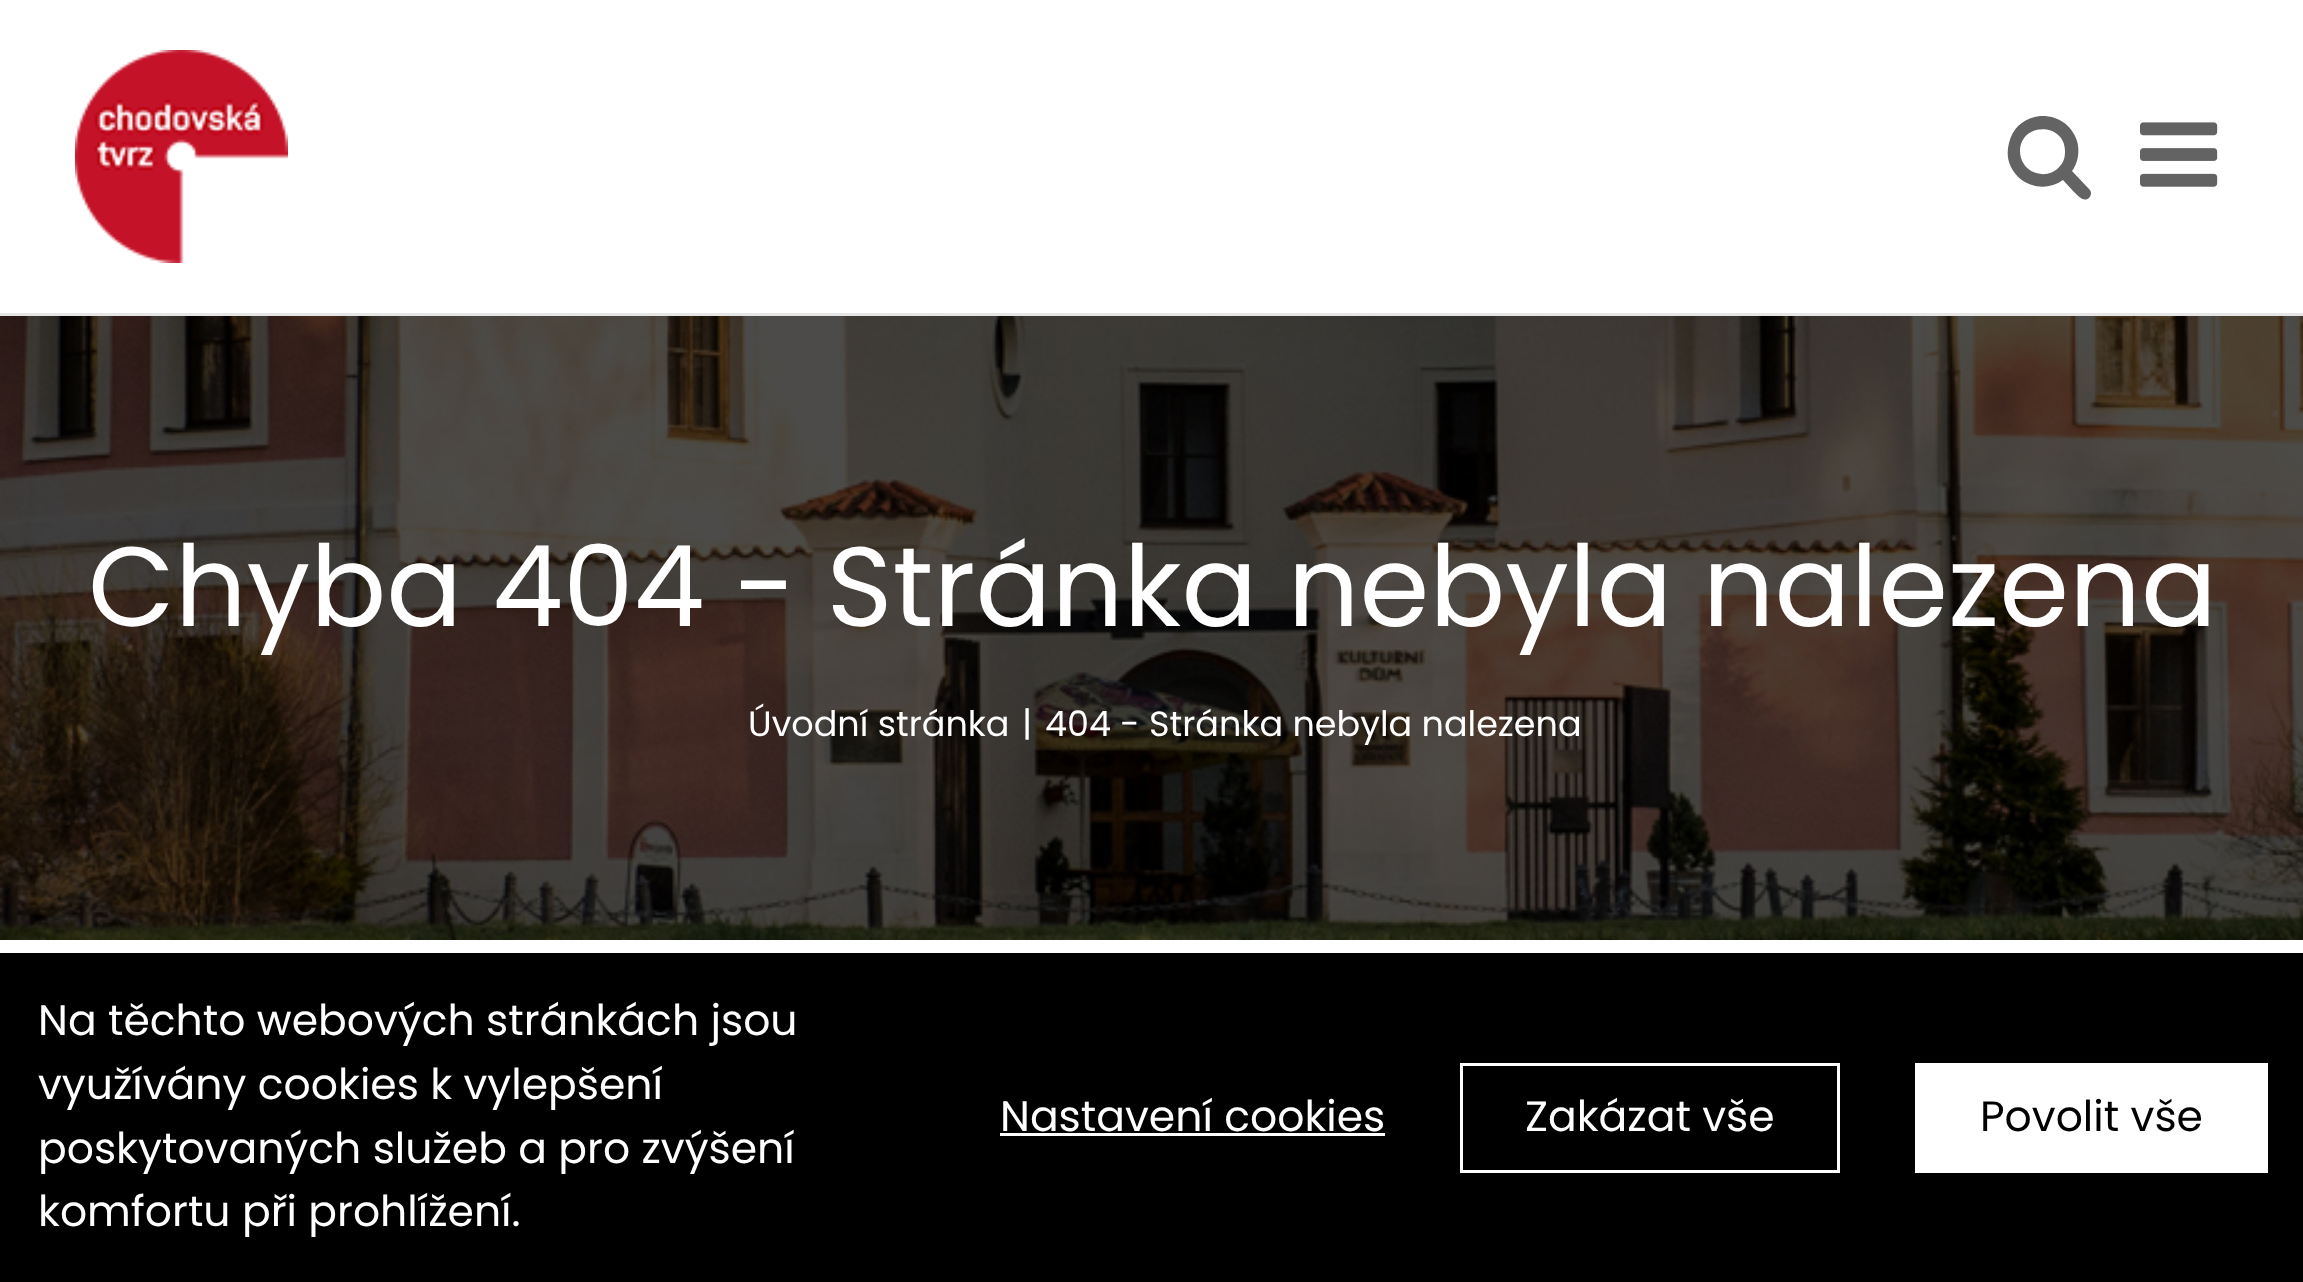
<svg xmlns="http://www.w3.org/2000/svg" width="2303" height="1282">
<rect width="100%" height="100%" fill="#fff"/>
<rect y="313" width="2303" height="3" fill="#e5e5e5"/>
<image x="75" y="50" width="213" height="213" href="media/1.png"/>
<path d="M2065 151c0-29-45-29-45 0c0 22 27 31 40 15c4-4 5-9 5-15zm26 42c0 2-1 4-2 5c-6 5-11-3-15-6l-11-12c-18 13-43 6-52-13c-4-8-4-16-2-24c8-35 57-36 68-2c3 10 1 22-5 30l17 18c1 1 2 2 2 4z" fill="#636363"/>
<image x="2140" y="122" width="78" height="65" href="media/2.png"/>
<image x="0" y="316" width="2303" height="624" href="media/3.png"/>
<text x="88" y="626" style="font-family:Poppins;font-size:112.5px;fill:#fff">Chyba 404 - Stránka nebyla nalezena</text>
<text x="748" y="736" style="font-family:Poppins;font-size:35px;fill:#fff">Úvodní stránka</text>
<text x="1022" y="736" style="font-family:Poppins;font-size:35px;fill:#fff">|</text>
<text x="1045" y="736" style="font-family:Poppins;font-size:35px;fill:#fff">404 - Stránka nebyla nalezena</text>
<rect y="953" width="2303" height="329" fill="#000"/>
<text x="38" y="1035" style="font-family:Poppins;font-size:42.5px;fill:#fff">Na těchto webových stránkách jsou</text>
<text x="38" y="1099" style="font-family:Poppins;font-size:42.5px;fill:#fff">využívány cookies k vylepšení</text>
<text x="38" y="1163" style="font-family:Poppins;font-size:42.5px;fill:#fff">poskytovaných služeb a pro zvýšení</text>
<text x="38" y="1226" style="font-family:Poppins;font-size:42.5px;fill:#fff">komfortu při prohlížení.</text>
<text x="1000" y="1131" style="font-family:Poppins;font-size:42.5px;fill:#fff">Nastavení cookies</text>
<rect x="1000" y="1133" width="385" height="3" fill="#fff"/>
<rect x="1461.5" y="1064.5" width="377" height="107" fill="none" stroke="#fff" stroke-width="3"/>
<text x="1525" y="1131" style="font-family:Poppins;font-size:42.5px;fill:#fff">Zakázat vše</text>
<rect x="1915" y="1063" width="353" height="110" fill="#fff"/>
<text x="1980" y="1131" style="font-family:Poppins;font-size:42.5px;fill:#000">Povolit vše</text>
</svg>
